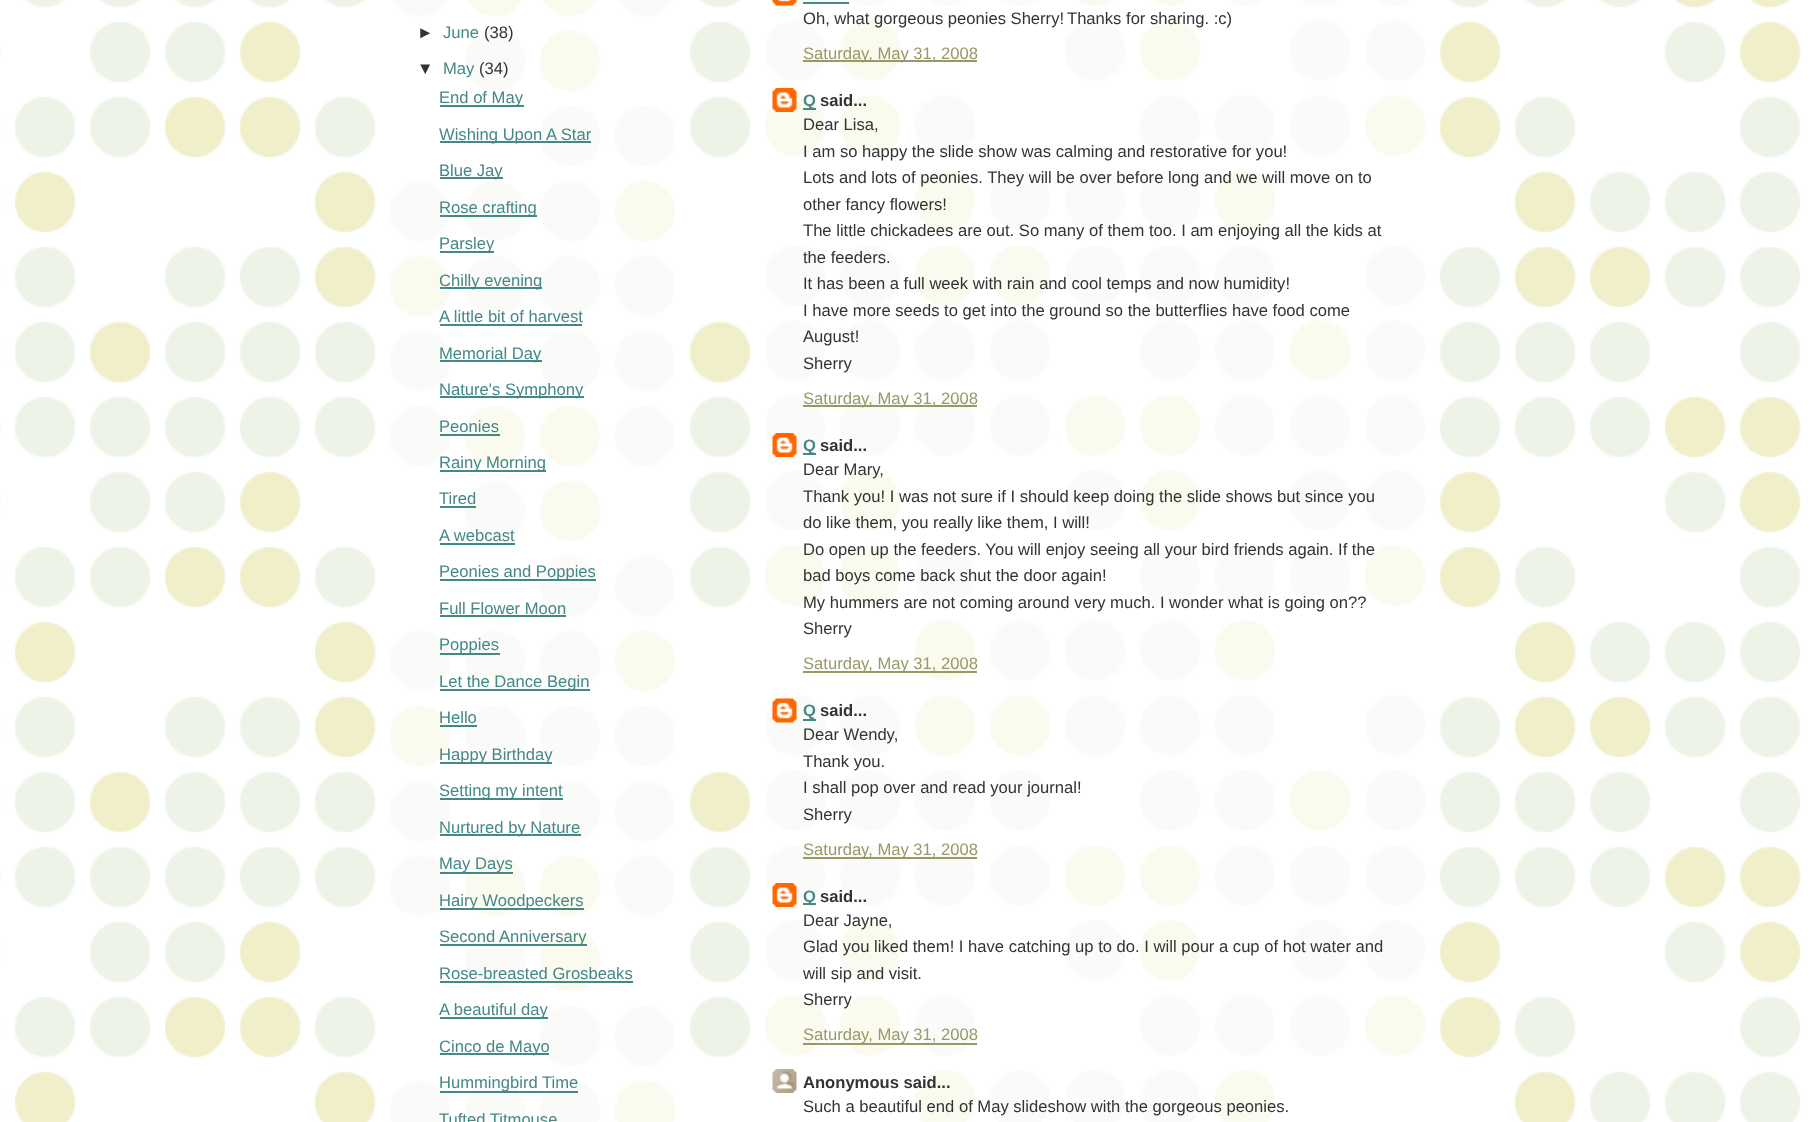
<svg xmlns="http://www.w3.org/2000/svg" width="1814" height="1122">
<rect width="100%" height="100%" fill="#fff"/>
<image x="0" y="0" width="1801" height="1122" href="media/1.png"/>
<image x="389" y="0" width="287" height="1122" href="media/2.png"/>
<text x="417" y="38" style="font-family:Liberation Sans;font-size:16.6px;fill:#333">►</text>
<text x="443" y="38" style="font-family:Liberation Sans;font-size:16.6px;fill:#488">June</text>
<text x="484" y="38" style="font-family:Liberation Sans;font-size:16.6px;fill:#333">(38)</text>
<text x="417" y="74" style="font-family:Liberation Sans;font-size:16.6px;fill:#333">▼</text>
<text x="443" y="74" style="font-family:Liberation Sans;font-size:16.6px;fill:#488">May</text>
<text x="479" y="74" style="font-family:Liberation Sans;font-size:16.6px;fill:#333">(34)</text>
<rect x="440" y="105" width="84" height="2" fill="#488"/>
<text x="439" y="103" style="font-family:Liberation Sans;font-size:16.6px;fill:#488">End of May</text>
<rect x="440" y="141" width="151" height="2" fill="#488"/>
<text x="439" y="140" style="font-family:Liberation Sans;font-size:16.6px;fill:#488">Wishing Upon A Star</text>
<rect x="440" y="177" width="63" height="2" fill="#488"/>
<text x="439" y="176" style="font-family:Liberation Sans;font-size:16.6px;fill:#488">Blue Jay</text>
<rect x="440" y="215" width="97" height="2" fill="#488"/>
<text x="439" y="213" style="font-family:Liberation Sans;font-size:16.6px;fill:#488">Rose crafting</text>
<rect x="440" y="251" width="54" height="2" fill="#488"/>
<text x="439" y="249" style="font-family:Liberation Sans;font-size:16.6px;fill:#488">Parsley</text>
<rect x="440" y="287" width="102" height="2" fill="#488"/>
<text x="439" y="286" style="font-family:Liberation Sans;font-size:16.6px;fill:#488">Chilly evening</text>
<text x="439" y="322" style="font-family:Liberation Sans;font-size:16.6px;fill:#488">A little bit of harvest</text>
<rect x="440" y="324" width="142" height="2" fill="#488"/>
<rect x="440" y="360" width="102" height="2" fill="#488"/>
<text x="439" y="359" style="font-family:Liberation Sans;font-size:16.6px;fill:#488">Memorial Day</text>
<rect x="440" y="396" width="144" height="2" fill="#488"/>
<text x="439" y="395" style="font-family:Liberation Sans;font-size:16.6px;fill:#488">Nature's Symphony</text>
<text x="439" y="432" style="font-family:Liberation Sans;font-size:16.6px;fill:#488">Peonies</text>
<rect x="440" y="434" width="60" height="2" fill="#488"/>
<rect x="440" y="470" width="106" height="2" fill="#488"/>
<text x="439" y="468" style="font-family:Liberation Sans;font-size:16.6px;fill:#488">Rainy Morning</text>
<text x="439" y="504" style="font-family:Liberation Sans;font-size:16.6px;fill:#488">Tired</text>
<rect x="440" y="506" width="36" height="2" fill="#488"/>
<text x="439" y="541" style="font-family:Liberation Sans;font-size:16.6px;fill:#488">A webcast</text>
<rect x="440" y="543" width="75" height="2" fill="#488"/>
<rect x="440" y="579" width="156" height="2" fill="#488"/>
<text x="439" y="577" style="font-family:Liberation Sans;font-size:16.6px;fill:#488">Peonies and Poppies</text>
<text x="439" y="614" style="font-family:Liberation Sans;font-size:16.6px;fill:#488">Full Flower Moon</text>
<rect x="440" y="615" width="126" height="2" fill="#488"/>
<rect x="440" y="653" width="60" height="2" fill="#488"/>
<text x="439" y="650" style="font-family:Liberation Sans;font-size:16.6px;fill:#488">Poppies</text>
<rect x="440" y="689" width="150" height="2" fill="#488"/>
<text x="439" y="687" style="font-family:Liberation Sans;font-size:16.6px;fill:#488">Let the Dance Begin</text>
<text x="439" y="723" style="font-family:Liberation Sans;font-size:16.6px;fill:#488">Hello</text>
<rect x="440" y="725" width="37" height="2" fill="#488"/>
<rect x="440" y="762" width="112" height="2" fill="#488"/>
<text x="439" y="760" style="font-family:Liberation Sans;font-size:16.6px;fill:#488">Happy Birthday</text>
<rect x="440" y="798" width="123" height="2" fill="#488"/>
<text x="439" y="796" style="font-family:Liberation Sans;font-size:16.6px;fill:#488">Setting my intent</text>
<rect x="440" y="834" width="141" height="2" fill="#488"/>
<text x="439" y="833" style="font-family:Liberation Sans;font-size:16.6px;fill:#488">Nurtured by Nature</text>
<rect x="440" y="872" width="73" height="2" fill="#488"/>
<text x="439" y="869" style="font-family:Liberation Sans;font-size:16.6px;fill:#488">May Days</text>
<rect x="440" y="908" width="144" height="2" fill="#488"/>
<text x="439" y="906" style="font-family:Liberation Sans;font-size:16.6px;fill:#488">Hairy Woodpeckers</text>
<rect x="440" y="944" width="147" height="2" fill="#488"/>
<text x="439" y="942" style="font-family:Liberation Sans;font-size:16.6px;fill:#488">Second Anniversary</text>
<text x="439" y="979" style="font-family:Liberation Sans;font-size:16.6px;fill:#488">Rose-breasted Grosbeaks</text>
<rect x="440" y="981" width="193" height="2" fill="#488"/>
<rect x="440" y="1017" width="108" height="2" fill="#488"/>
<text x="439" y="1015" style="font-family:Liberation Sans;font-size:16.6px;fill:#488">A beautiful day</text>
<rect x="440" y="1053" width="109" height="2" fill="#488"/>
<text x="439" y="1052" style="font-family:Liberation Sans;font-size:16.6px;fill:#488">Cinco de Mayo</text>
<rect x="440" y="1091" width="138" height="2" fill="#488"/>
<text x="439" y="1088" style="font-family:Liberation Sans;font-size:16.6px;fill:#488">Hummingbird Time</text>
<text x="439" y="1125" style="font-family:Liberation Sans;font-size:16.6px;fill:#488">Tufted Titmouse</text>
<image x="764" y="0" width="662" height="1122" href="media/3.png"/>
<image x="772" y="0" width="25" height="6" href="media/4.png"/>
<rect x="803" y="2" width="46" height="2" fill="#488"/>
<text x="803" y="24" style="font-family:Liberation Sans;font-size:16.6px;fill:#333">Oh, what gorgeous peonies Sherry!</text>
<text x="1067" y="24" style="font-family:Liberation Sans;font-size:16.6px;fill:#333">Thanks for sharing. :c)</text>
<rect x="803" y="60" width="174" height="2" fill="#996"/>
<text x="803" y="59" style="font-family:Liberation Sans;font-size:16.6px;fill:#996">Saturday, May 31, 2008</text>
<image x="772" y="88" width="25" height="24" href="media/5.png"/>
<rect x="803" y="108" width="13" height="2" fill="#488"/>
<text x="803" y="106" style="font-family:Liberation Sans;font-size:16.6px;font-weight:bold;fill:#488">Q</text>
<text x="820" y="106" style="font-family:Liberation Sans;font-size:16.6px;font-weight:bold;fill:#333">said...</text>
<text x="803" y="130" style="font-family:Liberation Sans;font-size:16.6px;fill:#333">Dear Lisa,</text>
<text x="803" y="157" style="font-family:Liberation Sans;font-size:16.6px;fill:#333">I am so happy the slide show was calming and restorative for you!</text>
<text x="803" y="183" style="font-family:Liberation Sans;font-size:16.6px;fill:#333">Lots and lots of peonies. They will be over before long and we will move on to</text>
<text x="803" y="210" style="font-family:Liberation Sans;font-size:16.6px;fill:#333">other fancy flowers!</text>
<text x="803" y="236" style="font-family:Liberation Sans;font-size:16.6px;fill:#333">The little chickadees are out. So many of them too. I am enjoying all the kids at</text>
<text x="803" y="263" style="font-family:Liberation Sans;font-size:16.6px;fill:#333">the feeders.</text>
<text x="803" y="289" style="font-family:Liberation Sans;font-size:16.6px;fill:#333">It has been a full week with rain and cool temps and now humidity!</text>
<text x="803" y="316" style="font-family:Liberation Sans;font-size:16.6px;fill:#333">I have more seeds to get into the ground so the butterflies have food come</text>
<text x="803" y="342" style="font-family:Liberation Sans;font-size:16.6px;fill:#333">August!</text>
<text x="803" y="369" style="font-family:Liberation Sans;font-size:16.6px;fill:#333">Sherry</text>
<rect x="803" y="405" width="174" height="2" fill="#996"/>
<text x="803" y="404" style="font-family:Liberation Sans;font-size:16.6px;fill:#996">Saturday, May 31, 2008</text>
<image x="772" y="433" width="25" height="24" href="media/6.png"/>
<rect x="803" y="453" width="13" height="2" fill="#488"/>
<text x="803" y="451" style="font-family:Liberation Sans;font-size:16.6px;font-weight:bold;fill:#488">Q</text>
<text x="820" y="451" style="font-family:Liberation Sans;font-size:16.6px;font-weight:bold;fill:#333">said...</text>
<text x="803" y="475" style="font-family:Liberation Sans;font-size:16.6px;fill:#333">Dear Mary,</text>
<text x="803" y="502" style="font-family:Liberation Sans;font-size:16.6px;fill:#333">Thank you! I was not sure if I should keep doing the slide shows but since you</text>
<text x="803" y="528" style="font-family:Liberation Sans;font-size:16.6px;fill:#333">do like them, you really like them, I will!</text>
<text x="803" y="555" style="font-family:Liberation Sans;font-size:16.6px;fill:#333">Do open up the feeders. You will enjoy seeing all your bird friends again. If the</text>
<text x="803" y="581" style="font-family:Liberation Sans;font-size:16.6px;fill:#333">bad boys come back shut the door again!</text>
<text x="803" y="608" style="font-family:Liberation Sans;font-size:16.6px;fill:#333">My hummers are not coming around very much. I wonder what is going on??</text>
<text x="803" y="634" style="font-family:Liberation Sans;font-size:16.6px;fill:#333">Sherry</text>
<rect x="803" y="671" width="174" height="2" fill="#996"/>
<text x="803" y="669" style="font-family:Liberation Sans;font-size:16.6px;fill:#996">Saturday, May 31, 2008</text>
<image x="772" y="698" width="25" height="25" href="media/7.png"/>
<rect x="803" y="719" width="13" height="2" fill="#488"/>
<text x="803" y="716" style="font-family:Liberation Sans;font-size:16.6px;font-weight:bold;fill:#488">Q</text>
<text x="820" y="716" style="font-family:Liberation Sans;font-size:16.6px;font-weight:bold;fill:#333">said...</text>
<text x="803" y="740" style="font-family:Liberation Sans;font-size:16.6px;fill:#333">Dear Wendy,</text>
<text x="803" y="767" style="font-family:Liberation Sans;font-size:16.6px;fill:#333">Thank you.</text>
<text x="803" y="793" style="font-family:Liberation Sans;font-size:16.6px;fill:#333">I shall pop over and read your journal!</text>
<text x="803" y="820" style="font-family:Liberation Sans;font-size:16.6px;fill:#333">Sherry</text>
<rect x="803" y="857" width="174" height="2" fill="#996"/>
<text x="803" y="855" style="font-family:Liberation Sans;font-size:16.6px;fill:#996">Saturday, May 31, 2008</text>
<image x="772" y="883" width="25" height="24" href="media/6.png"/>
<rect x="803" y="903" width="13" height="2" fill="#488"/>
<text x="803" y="902" style="font-family:Liberation Sans;font-size:16.6px;font-weight:bold;fill:#488">Q</text>
<text x="820" y="902" style="font-family:Liberation Sans;font-size:16.6px;font-weight:bold;fill:#333">said...</text>
<text x="803" y="926" style="font-family:Liberation Sans;font-size:16.6px;fill:#333">Dear Jayne,</text>
<text x="803" y="952" style="font-family:Liberation Sans;font-size:16.6px;fill:#333">Glad you liked them! I have catching up to do. I will pour a cup of hot water and</text>
<text x="803" y="979" style="font-family:Liberation Sans;font-size:16.6px;fill:#333">will sip and visit.</text>
<text x="803" y="1005" style="font-family:Liberation Sans;font-size:16.6px;fill:#333">Sherry</text>
<rect x="803" y="1043" width="174" height="2" fill="#996"/>
<text x="803" y="1040" style="font-family:Liberation Sans;font-size:16.6px;fill:#996">Saturday, May 31, 2008</text>
<image x="772" y="1069" width="25" height="24" href="media/8.png"/>
<text x="803" y="1088" style="font-family:Liberation Sans;font-size:16.6px;font-weight:bold;fill:#333">Anonymous said...</text>
<text x="803" y="1112" style="font-family:Liberation Sans;font-size:16.6px;fill:#333">Such a beautiful end of May slideshow with the gorgeous peonies.</text>
</svg>
